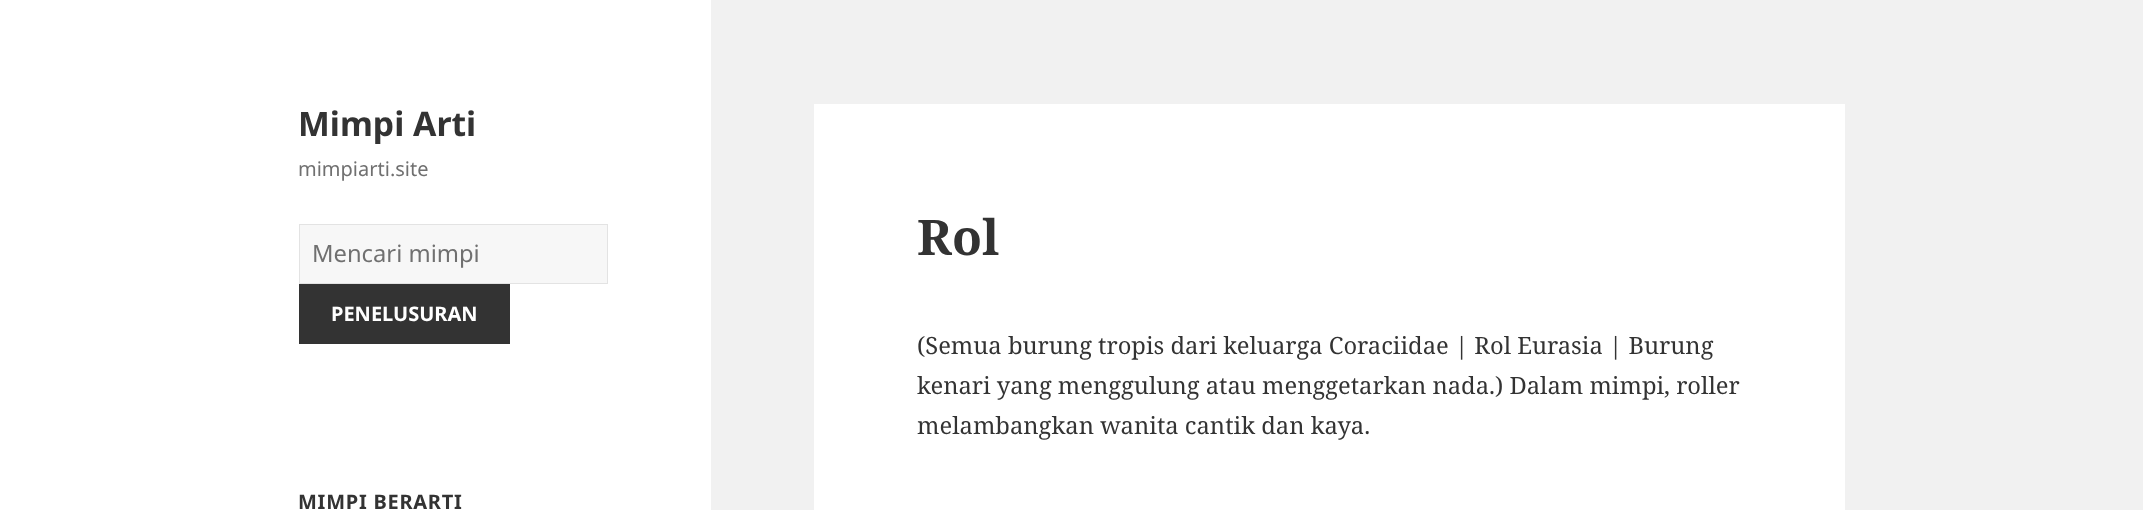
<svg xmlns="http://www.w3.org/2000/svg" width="2143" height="510">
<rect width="100%" height="100%" fill="#f1f1f1"/>
<rect width="711" height="510" fill="#fff"/>
<text x="298" y="136" style="font-family:Noto Sans;font-size:33.75px;font-weight:bold;fill:#333">Mimpi Arti</text>
<text x="298" y="176" style="font-family:Noto Sans;font-size:20px;fill:#707070">mimpiarti.site</text>
<rect x="299.5" y="224.5" width="308" height="59" fill="#f7f7f7" stroke="#e3e3e3"/>
<text x="312" y="262" style="font-family:Noto Sans;font-size:23.75px;fill:#707070">Mencari mimpi</text>
<rect x="299" y="284" width="211" height="60" fill="#333"/>
<text x="331" y="321" style="font-family:Noto Sans;font-size:20px;font-weight:bold;fill:#fff">PENELUSURAN</text>
<text x="298" y="509" style="font-family:Noto Sans;font-size:20px;font-weight:bold;letter-spacing:0.75px;fill:#333">MIMPI BERARTI</text>
<rect x="814" y="104" width="1031" height="406" fill="#fff"/>
<text x="917" y="255" style="font-family:Noto Serif;font-size:49px;font-weight:bold;fill:#333">Rol</text>
<text x="917" y="354" style="font-family:Noto Serif;font-size:23.75px;fill:#333">(Semua burung tropis dari keluarga Coraciidae | Rol Eurasia | Burung</text>
<text x="917" y="394" style="font-family:Noto Serif;font-size:23.75px;fill:#333">kenari yang menggulung atau menggetarkan nada.) Dalam mimpi, roller</text>
<text x="917" y="434" style="font-family:Noto Serif;font-size:23.75px;fill:#333">melambangkan wanita cantik dan kaya.</text>
</svg>
